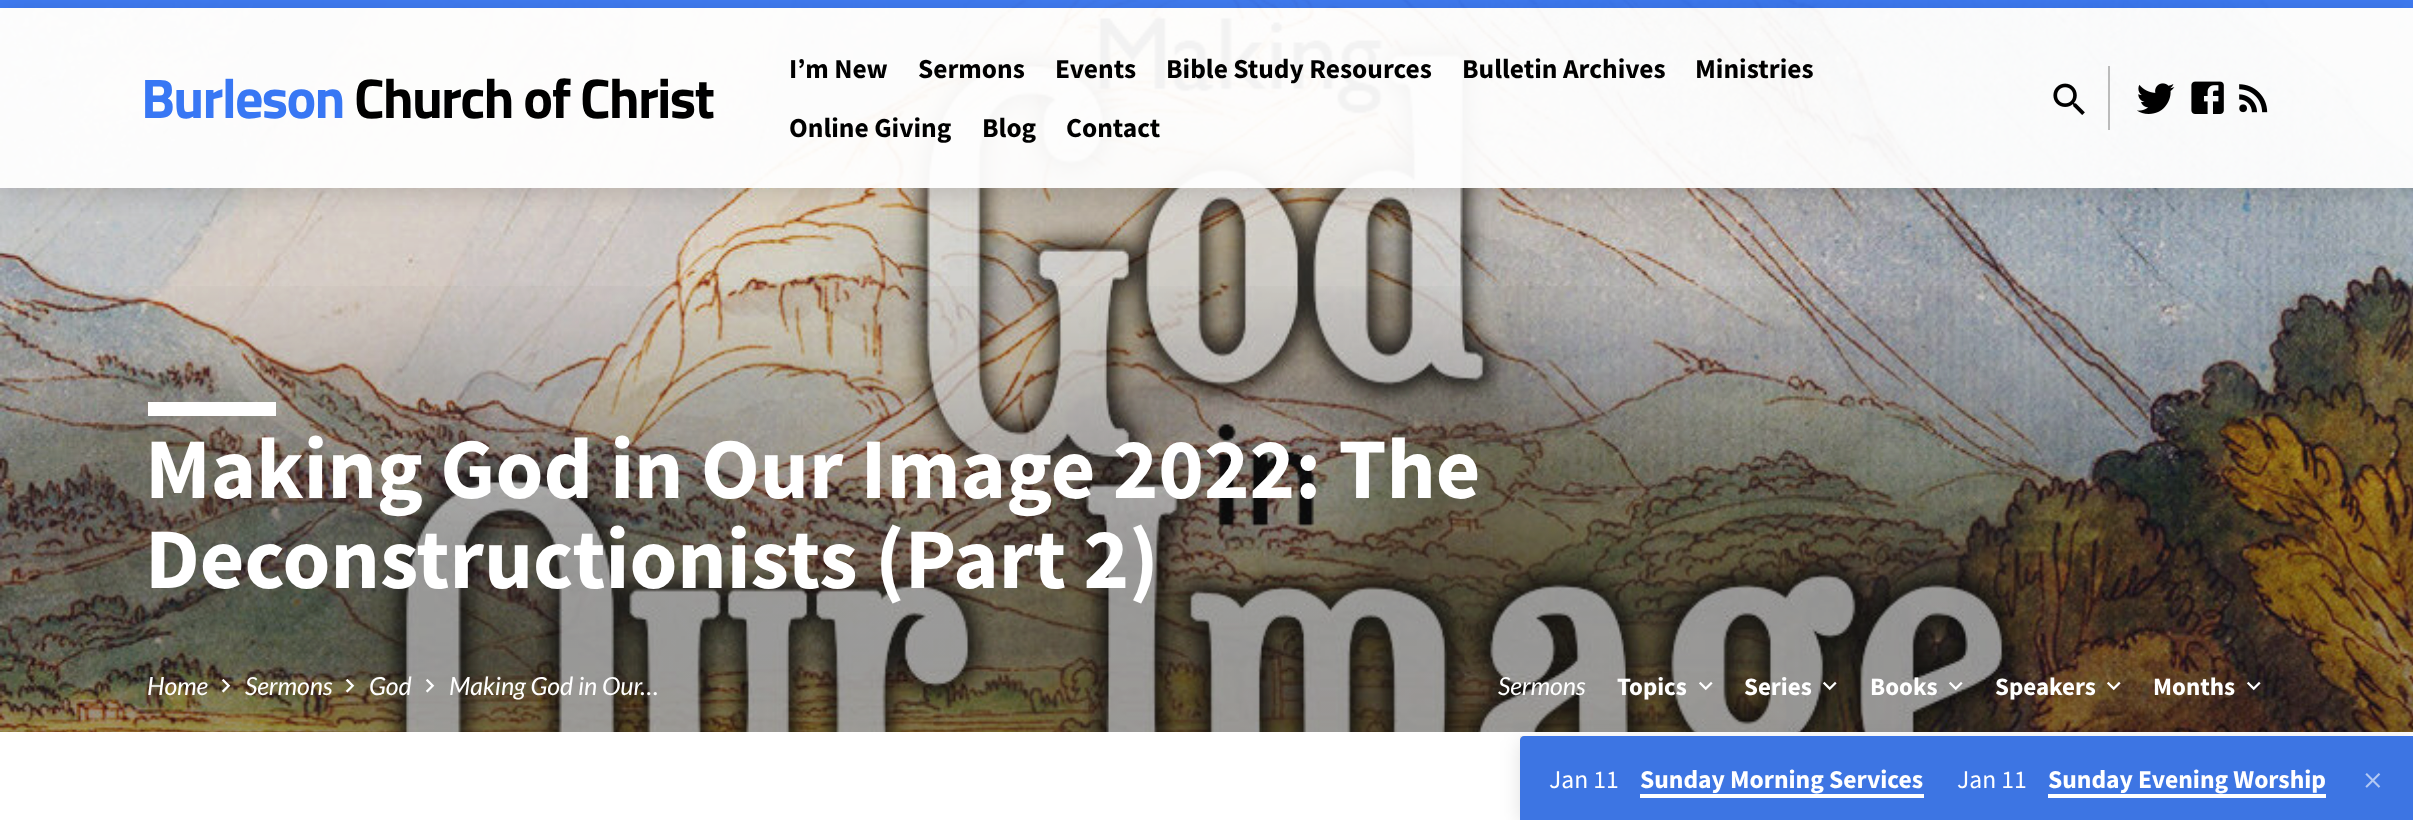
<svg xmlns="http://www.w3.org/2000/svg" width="2413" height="820">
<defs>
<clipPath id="clip1"><path d="M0 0h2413v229h-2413zm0 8h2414v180h-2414z" clip-rule="evenodd"/></clipPath>
<linearGradient id="g1" gradientUnits="userSpaceOnUse" x1="1207" y1="0" x2="1207" y2="732"><stop offset="0" stop-color="#000" stop-opacity="0"/><stop offset="0.36" stop-color="#000" stop-opacity="0"/><stop offset="0.76" stop-color="#000" stop-opacity="0.28"/><stop offset="1" stop-color="#000" stop-opacity="0.28"/></linearGradient>
</defs>
<rect width="100%" height="100%" fill="#fff"/>
<image x="0" y="0" width="2413" height="732" href="media/5.png"/>
<rect width="2413" height="8" fill="#3877f4f2"/>
<rect y="8" width="2413" height="180" fill="#fffffff2"/>
<g clip-path="url(#clip1)">
<rect y="12" width="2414" height="180" fill="#00000024" filter="blur(12px)"/>
</g>
<text x="141" y="118" style="font-family:Titillium Web;font-size:56px;font-weight:bold;letter-spacing:-1.75px;fill:#3877f4">Burleson</text>
<text x="354" y="118" style="font-family:Titillium Web;font-size:56px;font-weight:bold;letter-spacing:-1.75px;fill:#000">Church of Christ</text>
<text x="789" y="78" style="font-family:Source Sans Pro;font-size:27.4px;font-weight:bold;fill:#000">I’m New</text>
<text x="918" y="78" style="font-family:Source Sans Pro;font-size:27.4px;font-weight:bold;fill:#000">Sermons</text>
<text x="1055" y="78" style="font-family:Source Sans Pro;font-size:27.4px;font-weight:bold;fill:#000">Events</text>
<text x="1166" y="78" style="font-family:Source Sans Pro;font-size:27.4px;font-weight:bold;fill:#000">Bible Study Resources</text>
<text x="1462" y="78" style="font-family:Source Sans Pro;font-size:27.4px;font-weight:bold;fill:#000">Bulletin Archives</text>
<text x="1695" y="78" style="font-family:Source Sans Pro;font-size:27.4px;font-weight:bold;fill:#000">Ministries</text>
<text x="789" y="137" style="font-family:Source Sans Pro;font-size:27.4px;font-weight:bold;fill:#000">Online Giving</text>
<text x="982" y="137" style="font-family:Source Sans Pro;font-size:27.4px;font-weight:bold;fill:#000">Blog</text>
<text x="1066" y="137" style="font-family:Source Sans Pro;font-size:27.4px;font-weight:bold;fill:#000">Contact</text>
<image x="2053" y="83" width="32" height="32" href="media/1.png"/>
<rect x="2108" y="66" width="2" height="64" fill="#bbb"/>
<image x="2137" y="83" width="38" height="31" href="media/2.png"/>
<image x="2191" y="81" width="33" height="33" href="media/3.png"/>
<image x="2239" y="84" width="29" height="29" href="media/4.png"/>
<rect y="286" width="2413" height="446" fill="url(#g1)"/>
<rect x="148" y="402" width="128" height="14" fill="#fff"/>
<text x="145" y="498" style="font-family:Source Sans Pro;font-size:86.4px;font-weight:bold;fill:#fff">Making God in Our Image 2022: The</text>
<text x="145" y="588" style="font-family:Source Sans Pro;font-size:86.4px;font-weight:bold;fill:#fff">Deconstructionists (Part 2)</text>
<text x="147" y="695" style="font-family:Lato;font-size:25px;font-style:italic;fill:#fff">Home</text>
<image x="221" y="678" width="10" height="15" href="media/6.png"/>
<text x="245" y="695" style="font-family:Lato;font-size:25px;font-style:italic;fill:#fff">Sermons</text>
<image x="345" y="678" width="10" height="15" href="media/7.png"/>
<text x="369" y="695" style="font-family:Lato;font-size:25px;font-style:italic;fill:#fff">God</text>
<image x="426" y="679" width="9" height="14" href="media/8.png"/>
<text x="449" y="695" style="font-family:Lato;font-size:25px;font-style:italic;fill:#fff">Making God in Our…</text>
<text x="1498" y="695" style="font-family:Lato;font-size:25px;font-style:italic;fill:#fff">Sermons</text>
<text x="1617" y="695" style="font-family:Source Sans Pro;font-size:25px;font-weight:bold;fill:#fff">Topics</text>
<image x="1699" y="681" width="14" height="10" href="media/9.png"/>
<text x="1744" y="695" style="font-family:Source Sans Pro;font-size:25px;font-weight:bold;fill:#fff">Series</text>
<image x="1823" y="681" width="14" height="10" href="media/10.png"/>
<text x="1870" y="695" style="font-family:Source Sans Pro;font-size:25px;font-weight:bold;fill:#fff">Books</text>
<image x="1949" y="681" width="14" height="10" href="media/11.png"/>
<text x="1995" y="695" style="font-family:Source Sans Pro;font-size:25px;font-weight:bold;fill:#fff">Speakers</text>
<image x="2107" y="681" width="14" height="10" href="media/12.png"/>
<text x="2153" y="695" style="font-family:Source Sans Pro;font-size:25px;font-weight:bold;fill:#fff">Months</text>
<image x="2247" y="681" width="14" height="10" href="media/13.png"/>
<rect x="1520" y="740" width="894" height="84" rx="4" fill="#0000001f" filter="blur(10px)"/>
<path d="M1524 736h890v84h-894v-80c0-2 2-4 4-4z" fill="#427ef5"/>
<rect x="1520" y="736" width="893" height="84" fill="#00000012"/>
<text x="1549" y="788" style="font-family:Source Sans Pro;font-size:25.6px;fill:#fff">Jan 11</text>
<text x="1640" y="788" style="font-family:Source Sans Pro;font-size:25.6px;font-weight:bold;fill:#fff">Sunday Morning Services</text>
<rect x="1640" y="794" width="284" height="4" fill="#fff"/>
<text x="1957" y="788" style="font-family:Source Sans Pro;font-size:25.6px;fill:#fff">Jan 11</text>
<text x="2048" y="788" style="font-family:Source Sans Pro;font-size:25.6px;font-weight:bold;fill:#fff">Sunday Evening Worship</text>
<rect x="2048" y="794" width="278" height="4" fill="#fff"/>
<image x="2365" y="773" width="16" height="15" href="media/14.png"/>
</svg>
